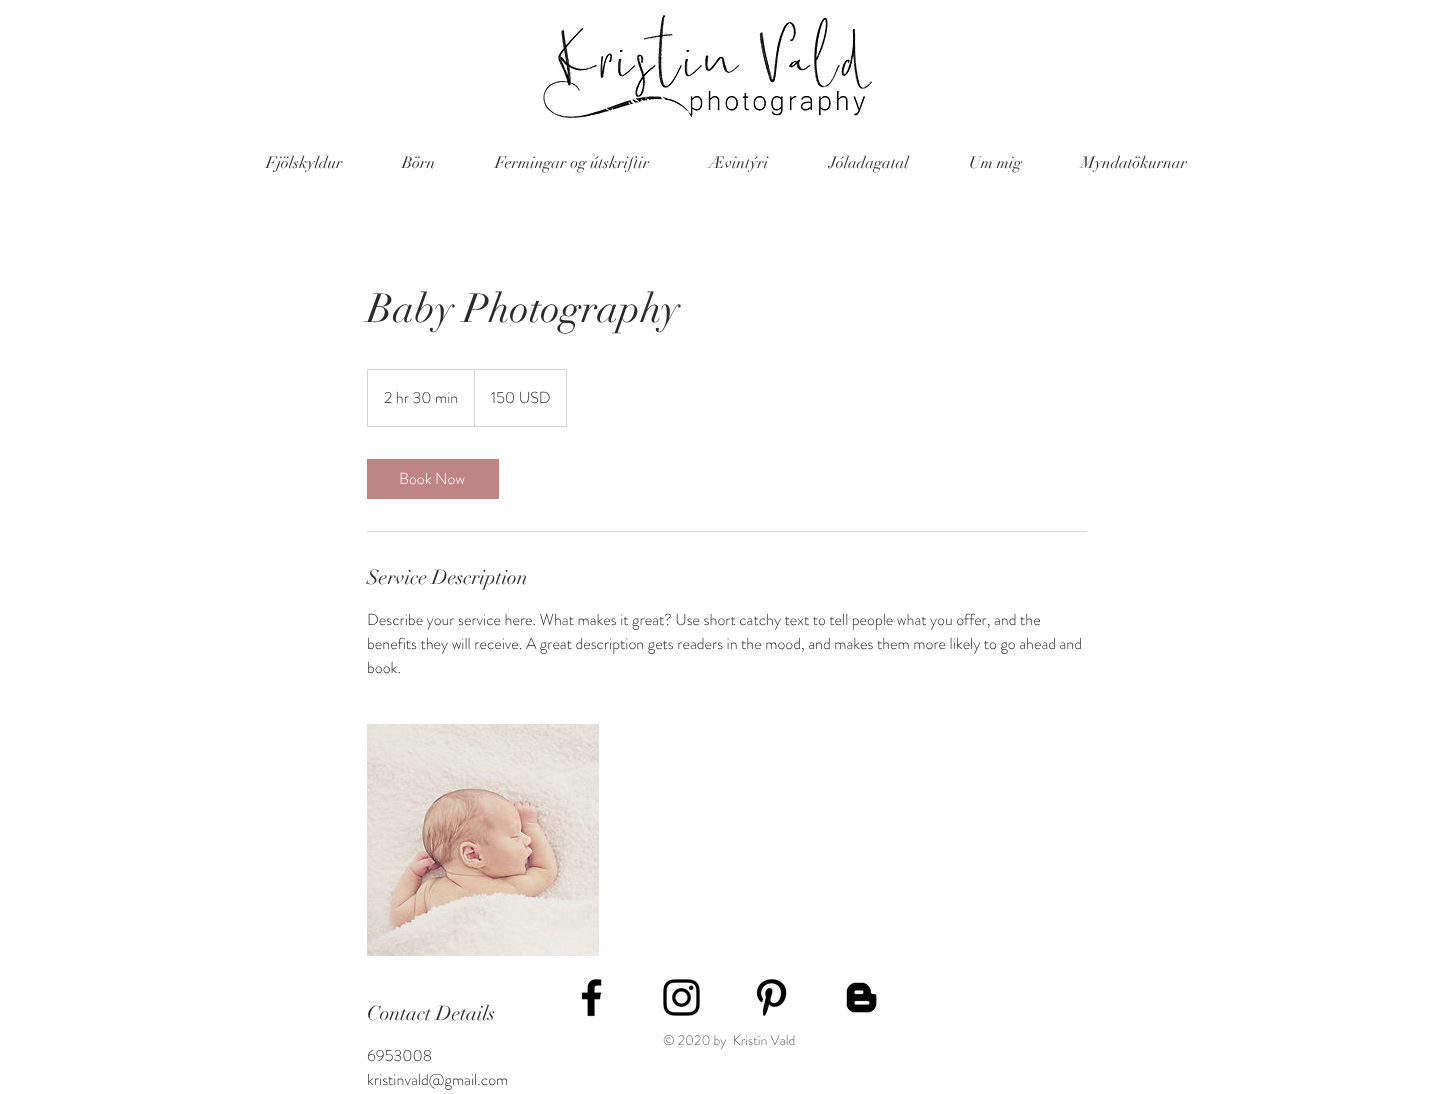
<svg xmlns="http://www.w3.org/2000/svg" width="1453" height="1094">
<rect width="100%" height="100%" fill="#fff"/>
<image x="540" y="12" width="332" height="108" href="media/1.png"/>
<text x="266" y="168" style="font-family:didot;font-size:16px;fill:#292929">Fjölskyldur</text>
<text x="402" y="168" style="font-family:didot;font-size:16px;fill:#292929">Börn</text>
<text x="495" y="168" style="font-family:didot;font-size:16px;fill:#292929">Fermingar og útskriftir</text>
<text x="709" y="168" style="font-family:didot;font-size:16px;fill:#292929">Ævintýri</text>
<text x="829" y="168" style="font-family:didot;font-size:16px;fill:#292929">Jóladagatal</text>
<text x="969" y="168" style="font-family:didot;font-size:16px;fill:#292929">Um mig</text>
<text x="1081" y="168" style="font-family:didot;font-size:16px;fill:#292929">Myndatökurnar</text>
<text x="367" y="322" style="font-family:didot;font-size:40px;fill:#292929">Baby Photography</text>
<rect x="367.5" y="369.5" width="199" height="57" fill="none" stroke="#d4d4d4"/>
<text x="384" y="403" style="font-family:'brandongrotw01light';font-size:16px;font-weight:300;fill:#292929">2 hr 30 min</text>
<path d="M474 426v-57l1 1v56z" fill="#d4d4d4"/>
<text x="491" y="403" style="font-family:'brandongrotw01light';font-size:16px;font-weight:300;fill:#292929">150 USD</text>
<rect x="367" y="459" width="132" height="40" fill="#bf8484"/>
<text x="399" y="484" style="font-family:'brandongrotw01light';font-size:16px;font-weight:300;fill:#fff">Book Now</text>
<rect x="367" y="531" width="720" height="1" fill="#d4d4d4"/>
<text x="367" y="584" style="font-family:didot;font-size:20px;fill:#292929">Service Description</text>
<text x="367" y="625" style="font-family:'brandongrotw01light';font-size:16px;font-weight:300;fill:#292929">Describe your service here. What makes it great? Use short catchy text to tell people what you offer, and the</text>
<text x="367" y="649" style="font-family:'brandongrotw01light';font-size:16px;font-weight:300;fill:#292929">benefits they will receive. A great description gets readers in the mood, and makes them more likely to go ahead and</text>
<text x="367" y="673" style="font-family:'brandongrotw01light';font-size:16px;font-weight:300;fill:#292929">book.</text>
<image x="367" y="724" width="232" height="232" href="media/2.png"/>
<text x="367" y="1020" style="font-family:didot;font-size:20px;fill:#292929">Contact Details</text>
<text x="367" y="1061" style="font-family:'brandongrotw01light';font-size:16px;font-weight:300;fill:#292929">6953008</text>
<text x="367" y="1085" style="font-family:'brandongrotw01light';font-size:16px;font-weight:300;fill:#292929">kristinvald@gmail.com</text>
<image x="581" y="979" width="21" height="38" href="media/3.png"/>
<image x="663" y="979" width="37" height="37" href="media/4.png"/>
<image x="756" y="979" width="31" height="37" href="media/5.png"/>
<image x="846" y="982" width="31" height="31" href="media/6.png"/>
<text x="663" y="1045" style="font-family:'brandongrotw01light';font-size:14px;font-weight:300;fill:#605e5e" xml:space="preserve">© 2020 by  Kristín Vald</text>
</svg>
